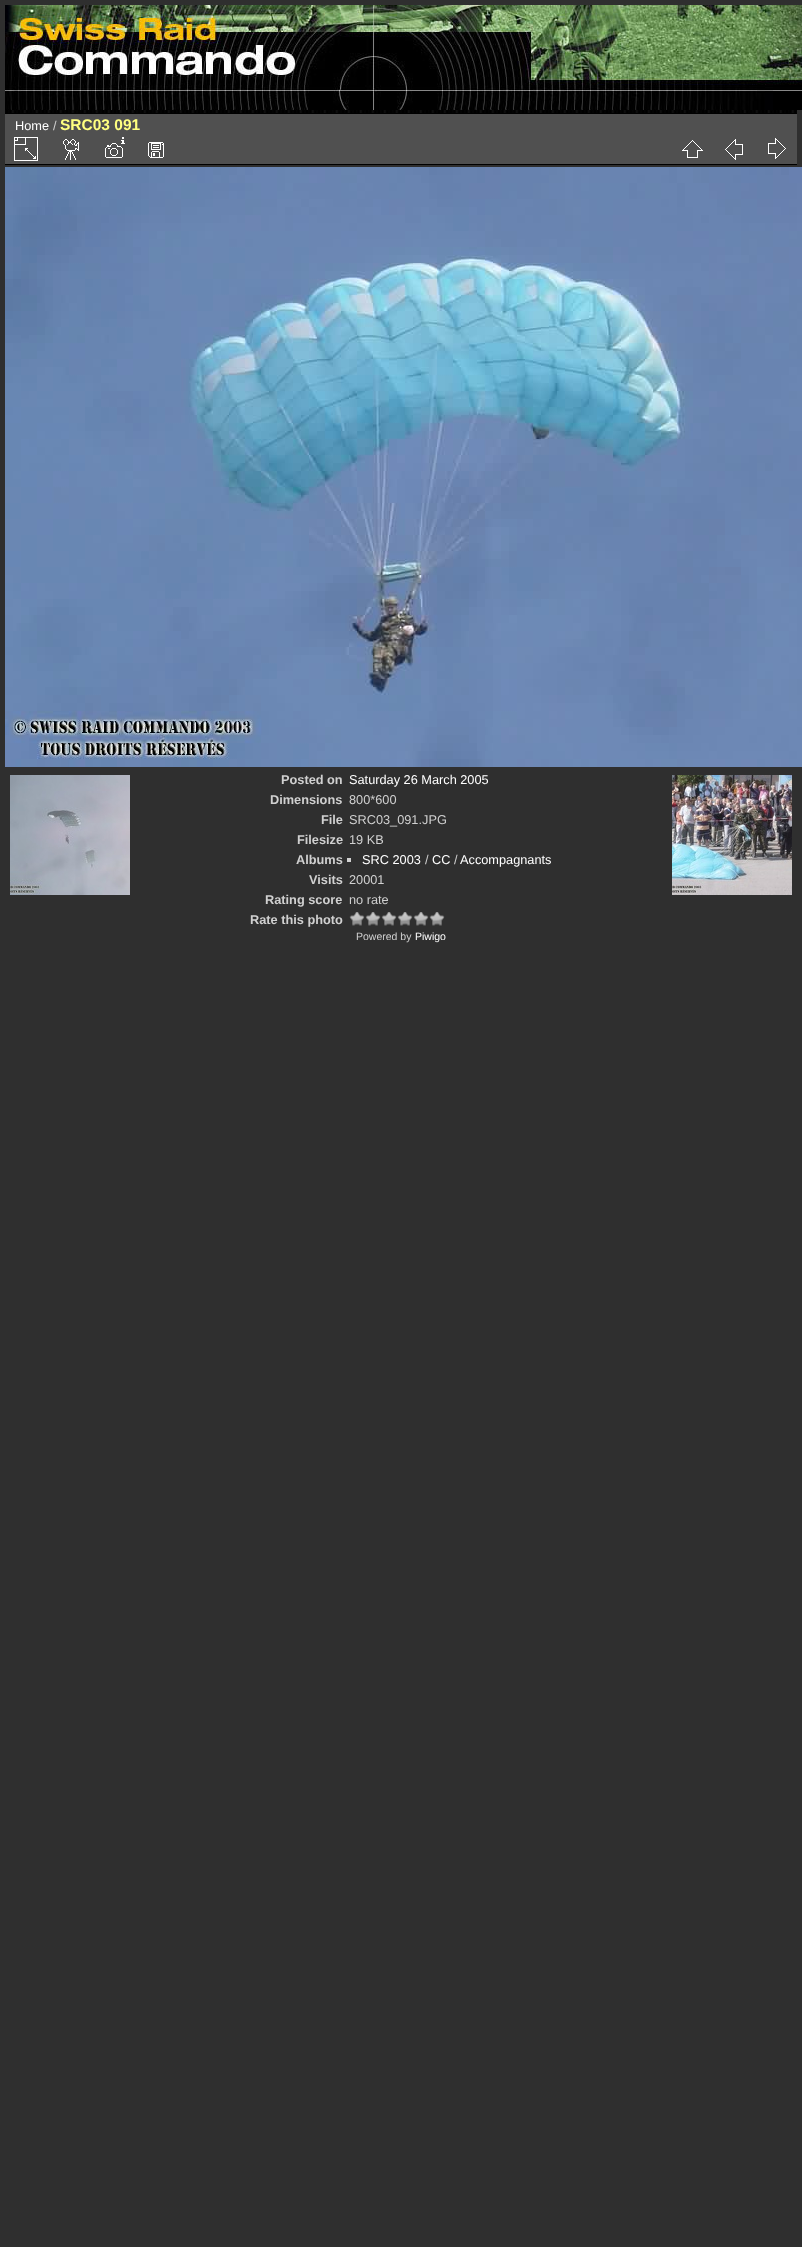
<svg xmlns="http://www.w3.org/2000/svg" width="802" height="2247">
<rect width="100%" height="100%" fill="#2f2f2f"/>
<image x="5" y="110" width="792" height="3" href="media/1.png"/>
<image x="5" y="5" width="797" height="105" href="media/2.png"/>
<rect x="5" y="114" width="792" height="50" fill="#505050"/>
<rect x="5" y="164" width="792" height="1" fill="#000"/>
<image x="14" y="137" width="24" height="24" href="media/3.png"/>
<image x="63" y="139" width="16" height="21" href="media/4.png"/>
<image x="105" y="137" width="20" height="21" href="media/5.png"/>
<image x="148" y="142" width="16" height="16" href="media/6.png"/>
<image x="682" y="140" width="21" height="18" href="media/7.png"/>
<image x="725" y="139" width="18" height="21" href="media/8.png"/>
<image x="768" y="138" width="18" height="21" href="media/9.png"/>
<rect x="5" y="113" width="792" height="1" fill="#000"/>
<text x="15" y="130" style="font-family:Liberation Sans;font-size:12.75px;fill:#fff">Home</text>
<text x="53" y="130" style="font-family:Liberation Sans;font-size:12.75px;fill:#d0d0d0">/</text>
<text x="60" y="130" style="font-family:Liberation Sans;font-size:15.5px;font-weight:bold;fill:#ffff80">SRC03 091</text>
<image x="5" y="167" width="797" height="600" href="media/10.png"/>
<text x="281" y="784" style="font-family:Liberation Sans;font-size:12.75px;font-weight:bold;fill:#d0d0d0">Posted on</text>
<text x="349" y="784" style="font-family:Liberation Sans;font-size:12.75px;fill:#fff">Saturday 26 March 2005</text>
<text x="270" y="804" style="font-family:Liberation Sans;font-size:12.75px;font-weight:bold;fill:#d0d0d0">Dimensions</text>
<text x="349" y="804" style="font-family:Liberation Sans;font-size:12.75px;fill:#d0d0d0">800*600</text>
<text x="321" y="824" style="font-family:Liberation Sans;font-size:12.75px;font-weight:bold;fill:#d0d0d0">File</text>
<text x="349" y="824" style="font-family:Liberation Sans;font-size:12.75px;fill:#d0d0d0">SRC03_091.JPG</text>
<text x="297" y="844" style="font-family:Liberation Sans;font-size:12.75px;font-weight:bold;fill:#d0d0d0">Filesize</text>
<text x="349" y="844" style="font-family:Liberation Sans;font-size:12.75px;fill:#d0d0d0">19 KB</text>
<text x="296" y="864" style="font-family:Liberation Sans;font-size:12.75px;font-weight:bold;fill:#d0d0d0">Albums</text>
<rect x="347" y="858" width="4" height="4" fill="#d0d0d0"/>
<text x="362" y="864" style="font-family:Liberation Sans;font-size:12.75px;fill:#fff">SRC 2003</text>
<text x="425" y="864" style="font-family:Liberation Sans;font-size:12.75px;fill:#d0d0d0">/</text>
<text x="432" y="864" style="font-family:Liberation Sans;font-size:12.75px;fill:#fff">CC</text>
<text x="454" y="864" style="font-family:Liberation Sans;font-size:12.75px;fill:#d0d0d0">/</text>
<text x="460" y="864" style="font-family:Liberation Sans;font-size:12.75px;fill:#fff">Accompagnants</text>
<text x="309" y="884" style="font-family:Liberation Sans;font-size:12.75px;font-weight:bold;fill:#d0d0d0">Visits</text>
<text x="349" y="884" style="font-family:Liberation Sans;font-size:12.75px;fill:#d0d0d0">20001</text>
<text x="265" y="904" style="font-family:Liberation Sans;font-size:12.75px;font-weight:bold;fill:#d0d0d0">Rating score</text>
<text x="349" y="904" style="font-family:Liberation Sans;font-size:12.75px;fill:#d0d0d0">no rate</text>
<text x="250" y="924" style="font-family:Liberation Sans;font-size:12.75px;font-weight:bold;fill:#d0d0d0">Rate this photo</text>
<image x="349" y="912" width="16" height="14" href="media/11.png"/>
<image x="365" y="912" width="16" height="14" href="media/11.png"/>
<image x="381" y="912" width="16" height="14" href="media/11.png"/>
<image x="397" y="912" width="16" height="14" href="media/11.png"/>
<image x="413" y="912" width="16" height="14" href="media/11.png"/>
<image x="429" y="912" width="16" height="14" href="media/11.png"/>
<image x="10" y="775" width="120" height="120" href="media/12.png"/>
<image x="672" y="775" width="120" height="120" href="media/13.png"/>
<text x="356" y="940" style="font-family:Liberation Sans;font-size:10.5px;fill:#d0d0d0">Powered by</text>
<text x="415" y="940" style="font-family:Liberation Sans;font-size:10.5px;fill:#fff">Piwigo</text>
</svg>
